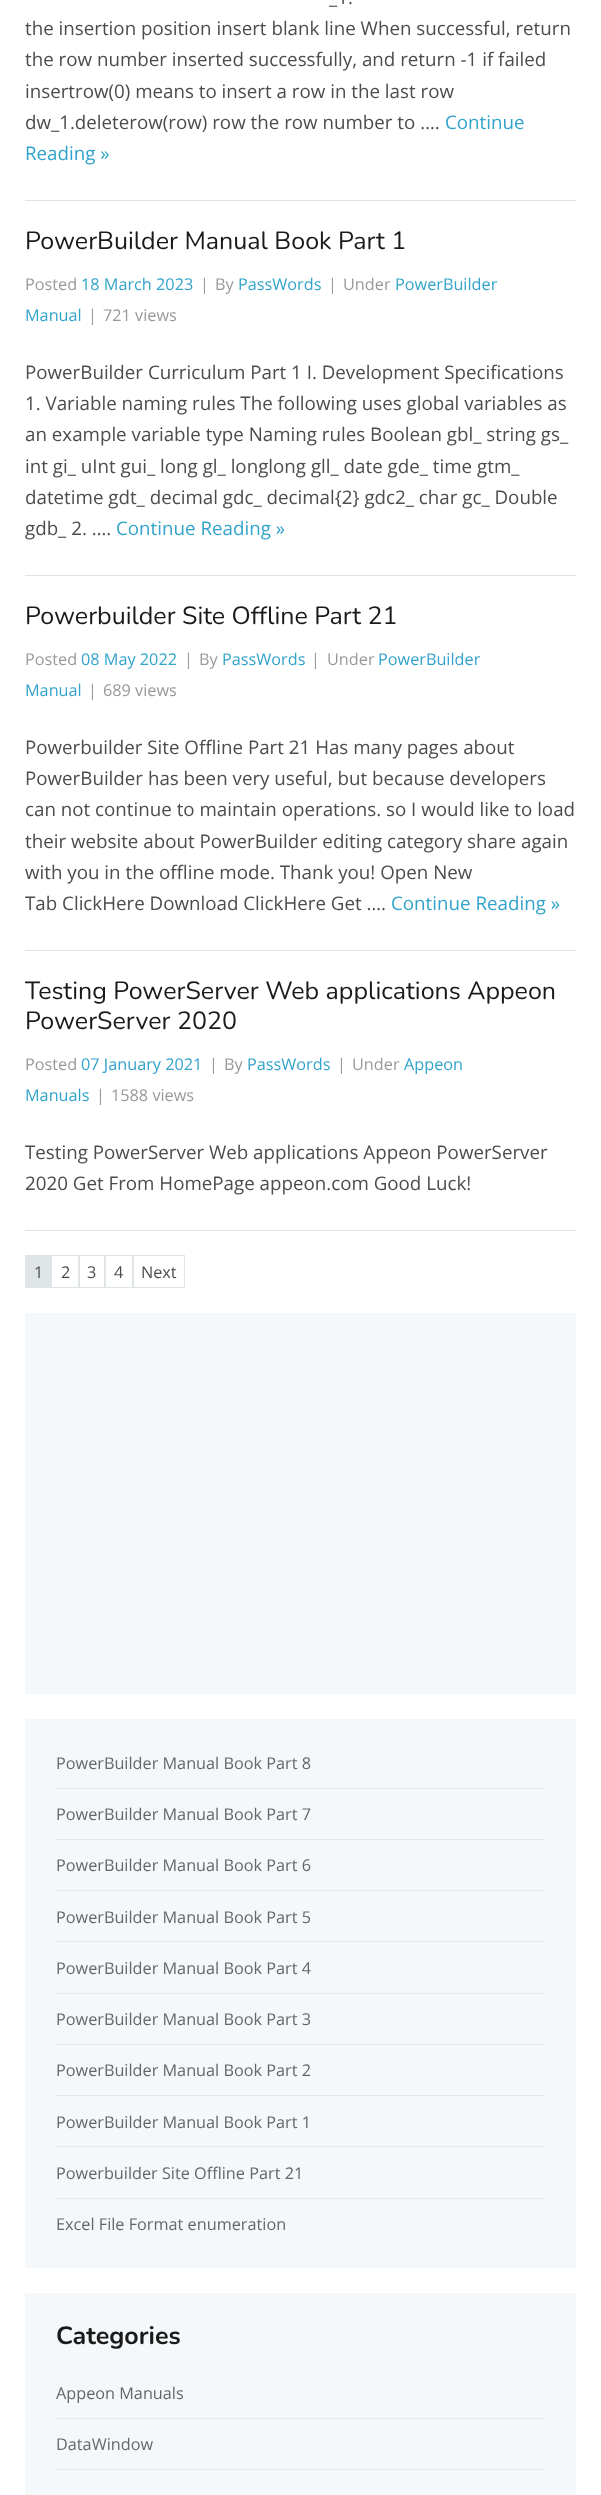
<svg xmlns="http://www.w3.org/2000/svg" width="601" height="2495">
<rect width="100%" height="100%" fill="#fff"/>
<rect x="25" y="200" width="551" height="1" fill="#dfe4e6"/>
<text x="329" y="4" style="font-family:Open Sans;font-size:18.75px;fill:#4b4d4d">_1.</text>
<text x="25" y="35" style="font-family:Open Sans;font-size:18.75px;fill:#4b4d4d">the insertion position insert blank line When successful, return</text>
<text x="25" y="66" style="font-family:Open Sans;font-size:18.75px;fill:#4b4d4d">the row number inserted successfully, and return -1 if failed</text>
<text x="25" y="98" style="font-family:Open Sans;font-size:18.75px;fill:#4b4d4d">insertrow(0) means to insert a row in the last row</text>
<text x="25" y="129" style="font-family:Open Sans;font-size:18.75px;fill:#4b4d4d">dw_1.deleterow(row) row the row number to ….</text>
<text x="445" y="129" style="font-family:Open Sans;font-size:18.75px;fill:#32a3cb">Continue</text>
<text x="25" y="160" style="font-family:Open Sans;font-size:18.75px;fill:#32a3cb">Reading »</text>
<rect x="25" y="575" width="551" height="1" fill="#dfe4e6"/>
<text x="25" y="249" style="font-family:Nunito;font-size:25px;fill:#1a1a1a">PowerBuilder Manual Book Part 1</text>
<text x="25" y="290" style="font-family:Open Sans;font-size:16.25px;fill:#999">Posted</text>
<text x="81" y="290" style="font-family:Open Sans;font-size:16.25px;fill:#32a3cb">18 March 2023</text>
<text x="200" y="290" style="font-family:Open Sans;font-size:16.25px;fill:#999">|</text>
<text x="215" y="290" style="font-family:Open Sans;font-size:16.25px;fill:#999">By</text>
<text x="238" y="290" style="font-family:Open Sans;font-size:16.25px;fill:#32a3cb">PassWords</text>
<text x="328" y="290" style="font-family:Open Sans;font-size:16.25px;fill:#999">|</text>
<text x="343" y="290" style="font-family:Open Sans;font-size:16.25px;fill:#999">Under</text>
<text x="395" y="290" style="font-family:Open Sans;font-size:16.25px;fill:#32a3cb">PowerBuilder</text>
<text x="25" y="321" style="font-family:Open Sans;font-size:16.25px;fill:#32a3cb">Manual</text>
<text x="88" y="321" style="font-family:Open Sans;font-size:16.25px;fill:#999">|</text>
<text x="103" y="321" style="font-family:Open Sans;font-size:16.25px;fill:#999">721 views</text>
<text x="25" y="379" style="font-family:Open Sans;font-size:18.75px;fill:#4b4d4d">PowerBuilder Curriculum Part 1 I. Development Specifications</text>
<text x="25" y="410" style="font-family:Open Sans;font-size:18.75px;fill:#4b4d4d">1. Variable naming rules The following uses global variables as</text>
<text x="25" y="441" style="font-family:Open Sans;font-size:18.75px;fill:#4b4d4d">an example variable type Naming rules Boolean gbl_ string gs_</text>
<text x="25" y="473" style="font-family:Open Sans;font-size:18.75px;fill:#4b4d4d">int gi_ uInt gui_ long gl_ longlong gll_ date gde_ time gtm_</text>
<text x="25" y="504" style="font-family:Open Sans;font-size:18.75px;fill:#4b4d4d">datetime gdt_ decimal gdc_ decimal{2} gdc2_ char gc_ Double</text>
<text x="25" y="535" style="font-family:Open Sans;font-size:18.75px;fill:#4b4d4d">gdb_ 2. ….</text>
<text x="116" y="535" style="font-family:Open Sans;font-size:18.75px;fill:#32a3cb">Continue Reading »</text>
<rect x="25" y="950" width="551" height="1" fill="#dfe4e6"/>
<text x="25" y="624" style="font-family:Nunito;font-size:25px;fill:#1a1a1a">Powerbuilder Site Offline Part 21</text>
<text x="25" y="665" style="font-family:Open Sans;font-size:16.25px;fill:#999">Posted</text>
<text x="81" y="665" style="font-family:Open Sans;font-size:16.25px;fill:#32a3cb">08 May 2022</text>
<text x="184" y="665" style="font-family:Open Sans;font-size:16.25px;fill:#999">|</text>
<text x="199" y="665" style="font-family:Open Sans;font-size:16.25px;fill:#999">By</text>
<text x="222" y="665" style="font-family:Open Sans;font-size:16.25px;fill:#32a3cb">PassWords</text>
<text x="311" y="665" style="font-family:Open Sans;font-size:16.25px;fill:#999">|</text>
<text x="327" y="665" style="font-family:Open Sans;font-size:16.25px;fill:#999">Under</text>
<text x="378" y="665" style="font-family:Open Sans;font-size:16.25px;fill:#32a3cb">PowerBuilder</text>
<text x="25" y="696" style="font-family:Open Sans;font-size:16.25px;fill:#32a3cb">Manual</text>
<text x="88" y="696" style="font-family:Open Sans;font-size:16.25px;fill:#999">|</text>
<text x="103" y="696" style="font-family:Open Sans;font-size:16.25px;fill:#999">689 views</text>
<text x="25" y="754" style="font-family:Open Sans;font-size:18.75px;fill:#4b4d4d">Powerbuilder Site Offline Part 21 Has many pages about</text>
<text x="25" y="785" style="font-family:Open Sans;font-size:18.75px;fill:#4b4d4d">PowerBuilder has been very useful, but because developers</text>
<text x="25" y="816" style="font-family:Open Sans;font-size:18.75px;fill:#4b4d4d">can not continue to maintain operations. so I would like to load</text>
<text x="25" y="848" style="font-family:Open Sans;font-size:18.75px;fill:#4b4d4d">their website about PowerBuilder editing category share again</text>
<text x="25" y="879" style="font-family:Open Sans;font-size:18.75px;fill:#4b4d4d">with you in the offline mode. Thank you! Open New</text>
<text x="25" y="910" style="font-family:Open Sans;font-size:18.75px;fill:#4b4d4d">Tab ClickHere Download ClickHere Get ….</text>
<text x="391" y="910" style="font-family:Open Sans;font-size:18.75px;fill:#32a3cb">Continue Reading »</text>
<rect x="25" y="1230" width="551" height="1" fill="#dfe4e6"/>
<text x="25" y="999" style="font-family:Nunito;font-size:25px;fill:#1a1a1a">Testing PowerServer Web applications Appeon</text>
<text x="25" y="1029" style="font-family:Nunito;font-size:25px;fill:#1a1a1a">PowerServer 2020</text>
<text x="25" y="1070" style="font-family:Open Sans;font-size:16.25px;fill:#999">Posted</text>
<text x="81" y="1070" style="font-family:Open Sans;font-size:16.25px;fill:#32a3cb">07 January 2021</text>
<text x="209" y="1070" style="font-family:Open Sans;font-size:16.25px;fill:#999">|</text>
<text x="224" y="1070" style="font-family:Open Sans;font-size:16.25px;fill:#999">By</text>
<text x="247" y="1070" style="font-family:Open Sans;font-size:16.25px;fill:#32a3cb">PassWords</text>
<text x="337" y="1070" style="font-family:Open Sans;font-size:16.25px;fill:#999">|</text>
<text x="352" y="1070" style="font-family:Open Sans;font-size:16.25px;fill:#999">Under</text>
<text x="404" y="1070" style="font-family:Open Sans;font-size:16.25px;fill:#32a3cb">Appeon</text>
<text x="25" y="1101" style="font-family:Open Sans;font-size:16.25px;fill:#32a3cb">Manuals</text>
<text x="96" y="1101" style="font-family:Open Sans;font-size:16.25px;fill:#999">|</text>
<text x="111" y="1101" style="font-family:Open Sans;font-size:16.25px;fill:#999">1588 views</text>
<text x="25" y="1159" style="font-family:Open Sans;font-size:18.75px;fill:#4b4d4d">Testing PowerServer Web applications Appeon PowerServer</text>
<text x="25" y="1190" style="font-family:Open Sans;font-size:18.75px;fill:#4b4d4d">2020 Get From HomePage appeon.com Good Luck!</text>
<rect x="25" y="1255" width="26" height="33" fill="#dfe4e6"/>
<text x="34" y="1278" style="font-family:Open Sans;font-size:16.25px;fill:#4b4d4d">1</text>
<rect x="51.5" y="1255.5" width="27" height="32" fill="none" stroke="#dfe4e6"/>
<text x="61" y="1278" style="font-family:Open Sans;font-size:16.25px;fill:#4b4d4d">2</text>
<rect x="79.5" y="1255.5" width="25" height="32" fill="none" stroke="#dfe4e6"/>
<text x="87" y="1278" style="font-family:Open Sans;font-size:16.25px;fill:#4b4d4d">3</text>
<rect x="105.5" y="1255.5" width="27" height="32" fill="none" stroke="#dfe4e6"/>
<text x="114" y="1278" style="font-family:Open Sans;font-size:16.25px;fill:#4b4d4d">4</text>
<rect x="133.5" y="1255.5" width="51" height="32" fill="none" stroke="#dfe4e6"/>
<text x="141" y="1278" style="font-family:Open Sans;font-size:16.25px;fill:#4b4d4d">Next</text>
<rect x="25" y="1313" width="551" height="381" fill="#f5f8fa"/>
<rect x="25" y="1719" width="551" height="549" fill="#f5f8fa"/>
<rect x="56" y="1788" width="489" height="1" fill="#e5e7e9"/>
<text x="56" y="1769" style="font-family:Open Sans;font-size:16.25px;fill:#666">PowerBuilder Manual Book Part 8</text>
<rect x="56" y="1839" width="489" height="1" fill="#e5e7e9"/>
<text x="56" y="1820" style="font-family:Open Sans;font-size:16.25px;fill:#666">PowerBuilder Manual Book Part 7</text>
<rect x="56" y="1890" width="489" height="1" fill="#e5e7e9"/>
<text x="56" y="1871" style="font-family:Open Sans;font-size:16.25px;fill:#666">PowerBuilder Manual Book Part 6</text>
<rect x="56" y="1941" width="489" height="1" fill="#e5e7e9"/>
<text x="56" y="1923" style="font-family:Open Sans;font-size:16.25px;fill:#666">PowerBuilder Manual Book Part 5</text>
<rect x="56" y="1993" width="489" height="1" fill="#e5e7e9"/>
<text x="56" y="1974" style="font-family:Open Sans;font-size:16.25px;fill:#666">PowerBuilder Manual Book Part 4</text>
<rect x="56" y="2044" width="489" height="1" fill="#e5e7e9"/>
<text x="56" y="2025" style="font-family:Open Sans;font-size:16.25px;fill:#666">PowerBuilder Manual Book Part 3</text>
<rect x="56" y="2095" width="489" height="1" fill="#e5e7e9"/>
<text x="56" y="2076" style="font-family:Open Sans;font-size:16.25px;fill:#666">PowerBuilder Manual Book Part 2</text>
<rect x="56" y="2146" width="489" height="1" fill="#e5e7e9"/>
<text x="56" y="2128" style="font-family:Open Sans;font-size:16.25px;fill:#666">PowerBuilder Manual Book Part 1</text>
<rect x="56" y="2198" width="489" height="1" fill="#e5e7e9"/>
<text x="56" y="2179" style="font-family:Open Sans;font-size:16.25px;fill:#666">Powerbuilder Site Offline Part 21</text>
<text x="56" y="2230" style="font-family:Open Sans;font-size:16.25px;fill:#666">Excel File Format enumeration</text>
<rect x="25" y="2293" width="551" height="202" fill="#f5f8fa"/>
<text x="56" y="2344" style="font-family:Nunito;font-size:25px;font-weight:bold;fill:#1a1a1a">Categories</text>
<rect x="56" y="2418" width="489" height="1" fill="#e5e7e9"/>
<text x="56" y="2399" style="font-family:Open Sans;font-size:16.25px;fill:#666">Appeon Manuals</text>
<rect x="56" y="2469" width="489" height="1" fill="#e5e7e9"/>
<text x="56" y="2450" style="font-family:Open Sans;font-size:16.25px;fill:#666">DataWindow</text>
</svg>
